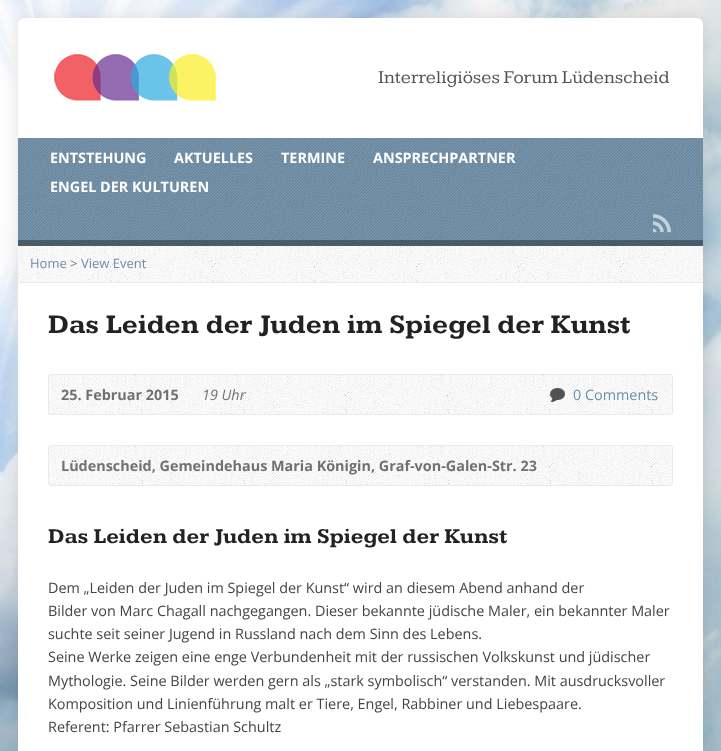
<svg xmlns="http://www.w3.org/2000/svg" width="721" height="751">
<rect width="100%" height="100%" fill="#fff"/>
<image x="0" y="0" width="721" height="751" href="media/1.png"/>
<rect x="18" y="18" width="685" height="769" rx="6" fill="#0000001f" filter="blur(10px)"/>
<rect x="18" y="18" width="685" height="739" rx="6" fill="#fff"/>
<image x="54" y="54" width="162" height="47" href="media/2.png"/>
<text x="378" y="83" style="font-family:Kameron;font-size:18.75px;fill:#555">Interreligiöses Forum Lüdenscheid</text>
<rect x="18" y="138" width="685" height="108" fill="#6a8fab"/>
<image x="18" y="138" width="685" height="108" href="media/3.png"/>
<text x="50" y="163" style="font-family:Open Sans;font-size:14.4px;font-weight:bold;fill:#fff">ENTSTEHUNG</text>
<text x="174" y="163" style="font-family:Open Sans;font-size:14.4px;font-weight:bold;fill:#fff">AKTUELLES</text>
<text x="281" y="163" style="font-family:Open Sans;font-size:14.4px;font-weight:bold;fill:#fff">TERMINE</text>
<text x="373" y="163" style="font-family:Open Sans;font-size:14.4px;font-weight:bold;fill:#fff">ANSPRECHPARTNER</text>
<text x="50" y="192" style="font-family:Open Sans;font-size:14.4px;font-weight:bold;fill:#fff">ENGEL DER KULTUREN</text>
<image x="653" y="214" width="18" height="19" href="media/4.png"/>
<rect x="18" y="240" width="685" height="6" fill="#00000059"/>
<image x="18" y="246" width="685" height="36" href="media/5.png"/>
<rect x="18" y="282" width="685" height="1" fill="#eaeaea"/>
<text x="30" y="268" style="font-family:Open Sans;font-size:13px;fill:#6a8fab">Home</text>
<text x="70" y="268" style="font-family:Open Sans;font-size:13px;fill:#777">&gt;</text>
<text x="81" y="268" style="font-family:Open Sans;font-size:13px;fill:#6a8fab">View Event</text>
<text x="48" y="333" style="font-family:Kameron;font-size:27.4px;font-weight:bold;fill:#222">Das Leiden der Juden im Spiegel der Kunst</text>
<image x="48" y="374" width="625" height="41" href="media/6.png"/>
<rect x="48.5" y="374.5" width="624" height="40" rx="2.5" fill="none" stroke="#eaeaea"/>
<text x="61" y="400" style="font-family:Open Sans;font-size:14.4px;font-weight:bold;fill:#717171">25. Februar 2015</text>
<text x="202" y="400" style="font-family:Open Sans;font-size:14.4px;font-style:italic;fill:#717171">19 Uhr</text>
<image x="550" y="388" width="15" height="14" href="media/7.png"/>
<text x="573" y="400" style="font-family:Open Sans;font-size:14.4px;fill:#6a8fab">0 Comments</text>
<image x="48" y="445" width="625" height="41" href="media/6.png"/>
<rect x="48.5" y="445.5" width="624" height="40" rx="2.5" fill="none" stroke="#eaeaea"/>
<text x="61" y="471" style="font-family:Open Sans;font-size:14.4px;font-weight:bold;fill:#717171">Lüdenscheid, Gemeindehaus Maria Königin, Graf-von-Galen-Str. 23</text>
<text x="48" y="543" style="font-family:Kameron;font-size:21.6px;font-weight:bold;fill:#222">Das Leiden der Juden im Spiegel der Kunst</text>
<text x="48" y="593" style="font-family:Open Sans;font-size:14.4px;fill:#444">Dem „Leiden der Juden im Spiegel der Kunst“ wird an diesem Abend anhand der</text>
<text x="48" y="616" style="font-family:Open Sans;font-size:14.4px;fill:#444">Bilder von Marc Chagall nachgegangen. Dieser bekannte jüdische Maler, ein bekannter Maler</text>
<text x="48" y="639" style="font-family:Open Sans;font-size:14.4px;fill:#444">suchte seit seiner Jugend in Russland nach dem Sinn des Lebens.</text>
<text x="48" y="662" style="font-family:Open Sans;font-size:14.4px;fill:#444">Seine Werke zeigen eine enge Verbundenheit mit der russischen Volkskunst und jüdischer</text>
<text x="48" y="686" style="font-family:Open Sans;font-size:14.4px;fill:#444">Mythologie. Seine Bilder werden gern als „stark symbolisch“ verstanden. Mit ausdrucksvoller</text>
<text x="48" y="709" style="font-family:Open Sans;font-size:14.4px;fill:#444">Komposition und Linienführung malt er Tiere, Engel, Rabbiner und Liebespaare.</text>
<text x="48" y="732" style="font-family:Open Sans;font-size:14.4px;fill:#444">Referent: Pfarrer Sebastian Schultz</text>
</svg>
